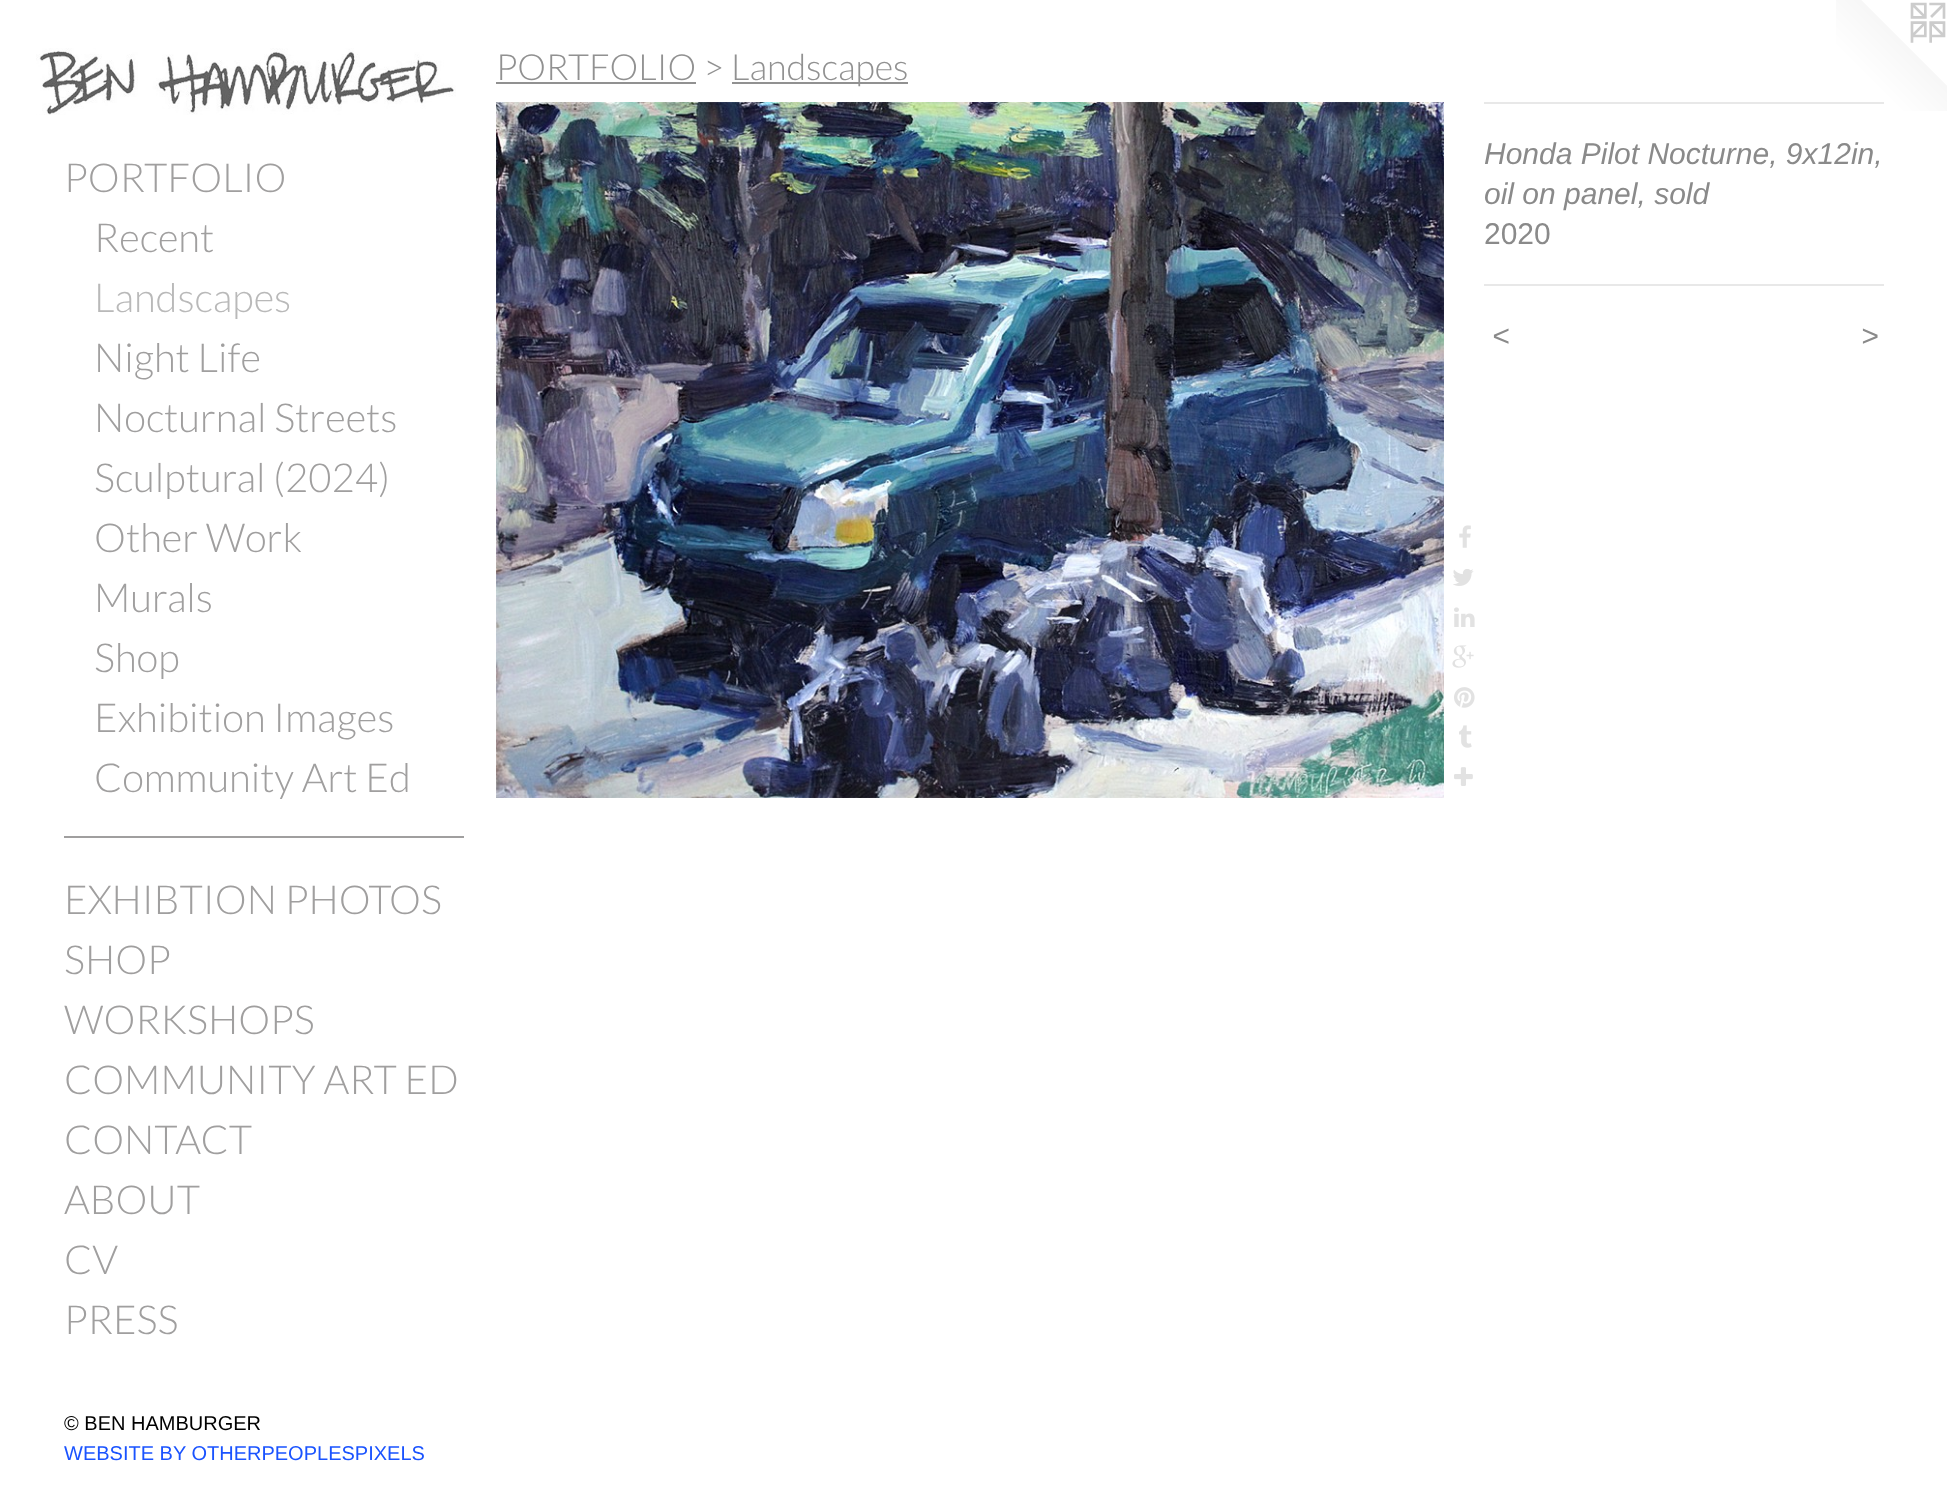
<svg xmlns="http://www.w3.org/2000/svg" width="1947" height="1508">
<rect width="100%" height="100%" fill="#fff"/>
<image x="36" y="48" width="420" height="67" href="media/1.png"/>
<text x="64" y="192" style="font-family:Lato;font-size:40px;font-weight:300;fill:#a09f9f">PORTFOLIO</text>
<text x="94" y="252" style="font-family:Lato;font-size:40px;font-weight:300;fill:#a09f9f">Recent</text>
<text x="94" y="312" style="font-family:Lato;font-size:40px;font-weight:300;fill:#b9b9b9">Landscapes</text>
<text x="94" y="372" style="font-family:Lato;font-size:40px;font-weight:300;fill:#a09f9f">Night Life</text>
<text x="94" y="432" style="font-family:Lato;font-size:40px;font-weight:300;fill:#a09f9f">Nocturnal Streets</text>
<text x="94" y="492" style="font-family:Lato;font-size:40px;font-weight:300;fill:#a09f9f">Sculptural (2024)</text>
<text x="94" y="552" style="font-family:Lato;font-size:40px;font-weight:300;fill:#a09f9f">Other Work</text>
<text x="94" y="612" style="font-family:Lato;font-size:40px;font-weight:300;fill:#a09f9f">Murals</text>
<text x="94" y="672" style="font-family:Lato;font-size:40px;font-weight:300;fill:#a09f9f">Shop</text>
<text x="94" y="732" style="font-family:Lato;font-size:40px;font-weight:300;fill:#a09f9f">Exhibition Images</text>
<text x="94" y="792" style="font-family:Lato;font-size:40px;font-weight:300;fill:#a09f9f">Community Art Ed</text>
<rect x="64" y="836" width="400" height="2" fill="#a09f9f"/>
<text x="64" y="914" style="font-family:Lato;font-size:40px;font-weight:300;fill:#a09f9f">EXHIBTION PHOTOS</text>
<text x="64" y="974" style="font-family:Lato;font-size:40px;font-weight:300;fill:#a09f9f">SHOP</text>
<text x="64" y="1034" style="font-family:Lato;font-size:40px;font-weight:300;fill:#a09f9f">WORKSHOPS</text>
<text x="64" y="1094" style="font-family:Lato;font-size:40px;font-weight:300;fill:#a09f9f">COMMUNITY ART ED</text>
<text x="64" y="1154" style="font-family:Lato;font-size:40px;font-weight:300;fill:#a09f9f">CONTACT</text>
<text x="64" y="1214" style="font-family:Lato;font-size:40px;font-weight:300;fill:#a09f9f">ABOUT</text>
<text x="64" y="1274" style="font-family:Lato;font-size:40px;font-weight:300;fill:#a09f9f">CV</text>
<text x="64" y="1334" style="font-family:Lato;font-size:40px;font-weight:300;fill:#a09f9f">PRESS</text>
<text x="64" y="1430" style="font-family:Liberation Sans;font-size:20px;fill:#000">© BEN HAMBURGER</text>
<text x="64" y="1460" style="font-family:Liberation Sans;font-size:20px;fill:#1a53ff">WEBSITE BY OTHERPEOPLESPIXELS</text>
<text x="496" y="80" style="font-family:Lato;font-size:36px;font-weight:300;fill:#919191">PORTFOLIO &gt;</text>
<rect x="496" y="82" width="200" height="2" fill="#919191"/>
<rect x="732" y="82" width="176" height="2" fill="#919191"/>
<text x="731" y="80" style="font-family:Lato;font-size:36px;font-weight:300;fill:#919191">Landscapes</text>
<image x="496" y="102" width="948" height="696" href="media/2.png"/>
<image x="1459" y="525" width="12" height="23" href="media/3.png"/>
<image x="1453" y="569" width="21" height="17" href="media/4.png"/>
<image x="1454" y="607" width="21" height="20" href="media/5.png"/>
<image x="1452" y="645" width="22" height="23" href="media/6.png"/>
<image x="1454" y="687" width="21" height="21" href="media/7.png"/>
<image x="1459" y="725" width="13" height="23" href="media/8.png"/>
<image x="1454" y="767" width="19" height="19" href="media/9.png"/>
<image x="1836" y="0" width="111" height="111" href="media/10.png"/>
<rect x="1484" y="102" width="400" height="2" fill="#e8e8e8"/>
<text x="1484" y="164" style="font-family:Liberation Sans;font-size:30px;font-style:italic;fill:#8a8a8a">Honda Pilot Nocturne, 9x12in,</text>
<text x="1484" y="204" style="font-family:Liberation Sans;font-size:30px;font-style:italic;fill:#8a8a8a">oil on panel, sold</text>
<text x="1484" y="244" style="font-family:Liberation Sans;font-size:30px;fill:#8a8a8a">2020</text>
<rect x="1484" y="284" width="400" height="2" fill="#e8e8e8"/>
<text x="1492" y="346" style="font-family:Liberation Sans;font-size:30px;font-style:italic;letter-spacing:2px;fill:#8a8a8a">&lt;</text>
<text x="1861" y="346" style="font-family:Liberation Sans;font-size:30px;font-style:italic;letter-spacing:2px;fill:#8a8a8a">&gt;</text>
</svg>
